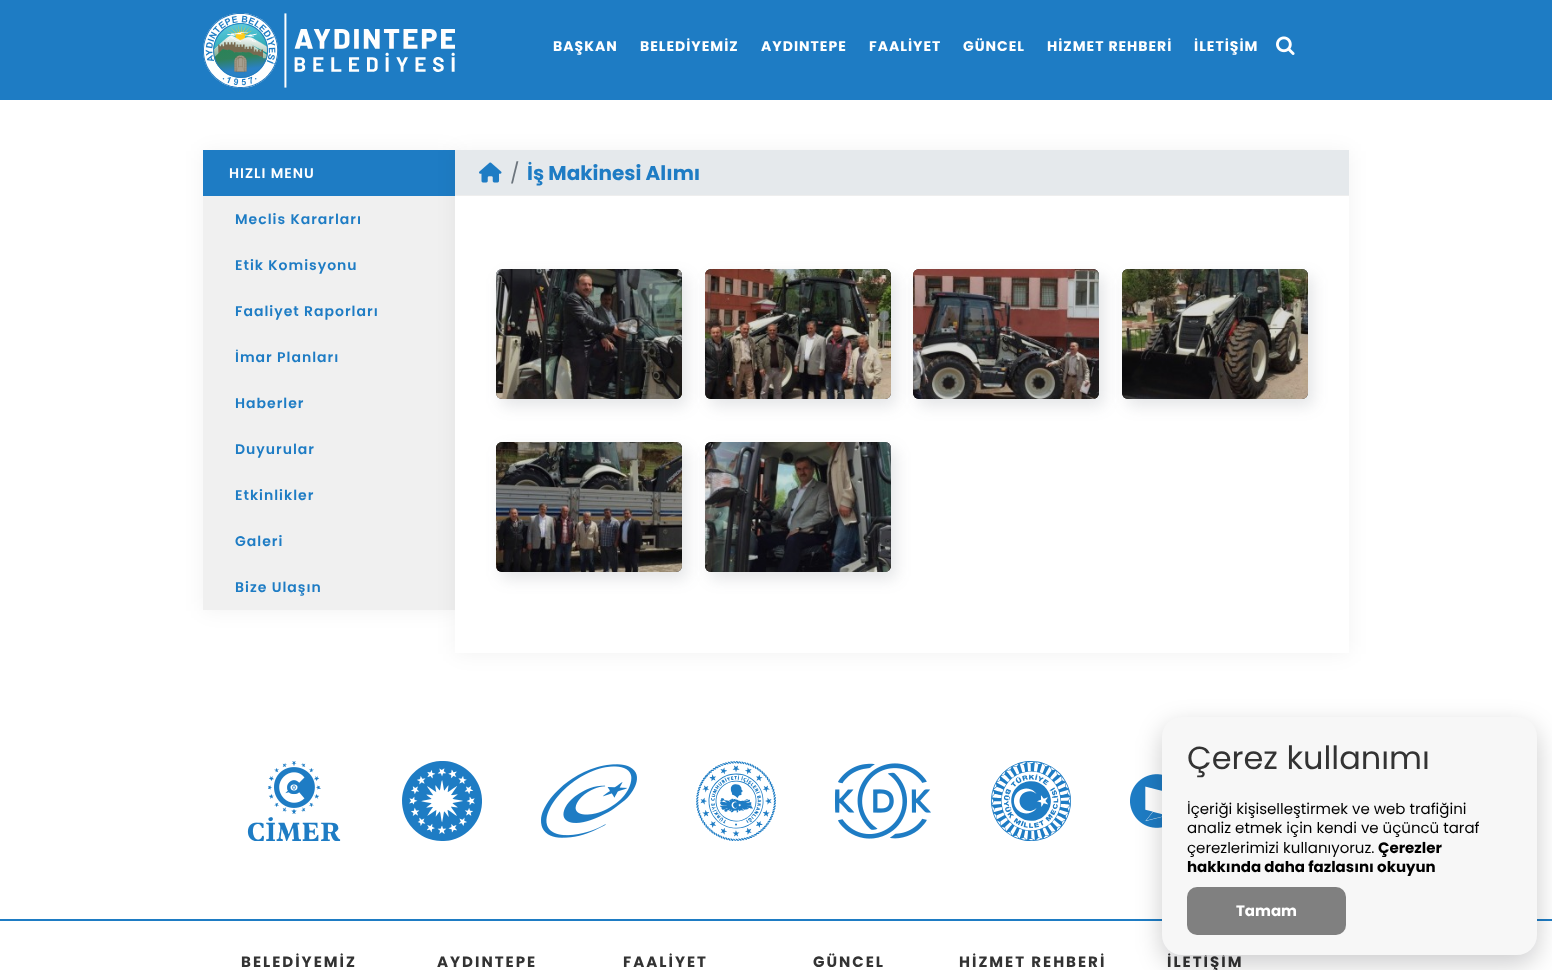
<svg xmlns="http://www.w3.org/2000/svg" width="1552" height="970">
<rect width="100%" height="100%" fill="#fff"/>
<rect width="1552" height="100" fill="#1e7cc4"/>
<image x="203" y="13" width="252" height="75" href="media/1.png"/>
<text x="553" y="51" style="font-family:Poppins;font-size:14px;font-weight:bold;letter-spacing:1px;fill:#fff">BAŞKAN</text>
<text x="640" y="51" style="font-family:Poppins;font-size:14px;font-weight:bold;letter-spacing:1px;fill:#fff">BELEDİYEMİZ</text>
<text x="761" y="51" style="font-family:Poppins;font-size:14px;font-weight:bold;letter-spacing:1px;fill:#fff">AYDINTEPE</text>
<text x="869" y="51" style="font-family:Poppins;font-size:14px;font-weight:bold;letter-spacing:1px;fill:#fff">FAALİYET</text>
<text x="963" y="51" style="font-family:Poppins;font-size:14px;font-weight:bold;letter-spacing:1px;fill:#fff">GÜNCEL</text>
<text x="1047" y="51" style="font-family:Poppins;font-size:14px;font-weight:bold;letter-spacing:1px;fill:#fff">HİZMET REHBERİ</text>
<text x="1194" y="51" style="font-family:Poppins;font-size:14px;font-weight:bold;letter-spacing:1px;fill:#fff">İLETİŞİM</text>
<image x="1276" y="36" width="19" height="19" href="media/2.png"/>
<rect x="203" y="151" width="252" height="460" fill="#0000000d" filter="blur(10px)"/>
<rect x="203" y="150" width="252" height="46" fill="#1e7cc4"/>
<text x="229" y="178" style="font-family:Poppins;font-size:14px;font-weight:600;letter-spacing:1px;fill:#fff">HIZLI MENU</text>
<rect x="203" y="196" width="252" height="414" fill="#f0f0f0"/>
<text x="235" y="224" style="font-family:Poppins;font-size:14px;font-weight:600;letter-spacing:1px;fill:#1e7cc4">Meclis Kararları</text>
<text x="235" y="270" style="font-family:Poppins;font-size:14px;font-weight:600;letter-spacing:1px;fill:#1e7cc4">Etik Komisyonu</text>
<text x="235" y="316" style="font-family:Poppins;font-size:14px;font-weight:600;letter-spacing:1px;fill:#1e7cc4">Faaliyet Raporları</text>
<text x="235" y="362" style="font-family:Poppins;font-size:14px;font-weight:600;letter-spacing:1px;fill:#1e7cc4">İmar Planları</text>
<text x="235" y="408" style="font-family:Poppins;font-size:14px;font-weight:600;letter-spacing:1px;fill:#1e7cc4">Haberler</text>
<text x="235" y="454" style="font-family:Poppins;font-size:14px;font-weight:600;letter-spacing:1px;fill:#1e7cc4">Duyurular</text>
<text x="235" y="500" style="font-family:Poppins;font-size:14px;font-weight:600;letter-spacing:1px;fill:#1e7cc4">Etkinlikler</text>
<text x="235" y="546" style="font-family:Poppins;font-size:14px;font-weight:600;letter-spacing:1px;fill:#1e7cc4">Galeri</text>
<text x="235" y="592" style="font-family:Poppins;font-size:14px;font-weight:600;letter-spacing:1px;fill:#1e7cc4">Bize Ulaşın</text>
<rect x="455" y="151" width="894" height="503" fill="#0000000d" filter="blur(10px)"/>
<rect x="455" y="196" width="894" height="457" fill="#fff"/>
<rect x="455" y="150" width="894" height="45" fill="#e5e9ec"/>
<rect x="455" y="195" width="894" height="1" fill="#eee"/>
<image x="479" y="162" width="23" height="21" href="media/3.png"/>
<text x="510" y="180" style="font-family:Poppins;font-size:20px;fill:#6c757d">/</text>
<text x="527" y="180" style="font-family:Poppins;font-size:20px;font-weight:bold;fill:#1e7cc4">İş Makinesi Alımı</text>
<rect x="501" y="276" width="186" height="130" rx="6" fill="#49525b26" filter="blur(7.5px)"/>
<rect x="496" y="269" width="186" height="130" rx="6" fill="#000"/>
<image x="496" y="269" width="186" height="130" href="media/4.png"/>
<rect x="710" y="276" width="186" height="130" rx="6" fill="#49525b26" filter="blur(7.5px)"/>
<rect x="705" y="269" width="186" height="130" rx="6" fill="#000"/>
<image x="705" y="269" width="186" height="130" href="media/5.png"/>
<rect x="918" y="276" width="186" height="130" rx="6" fill="#49525b26" filter="blur(7.5px)"/>
<rect x="913" y="269" width="186" height="130" rx="6" fill="#000"/>
<image x="913" y="269" width="186" height="130" href="media/6.png"/>
<rect x="1127" y="276" width="186" height="130" rx="6" fill="#49525b26" filter="blur(7.5px)"/>
<rect x="1122" y="269" width="186" height="130" rx="6" fill="#000"/>
<image x="1122" y="269" width="186" height="130" href="media/7.png"/>
<rect x="501" y="449" width="186" height="130" rx="6" fill="#49525b26" filter="blur(7.5px)"/>
<rect x="496" y="442" width="186" height="130" rx="6" fill="#000"/>
<image x="496" y="442" width="186" height="130" href="media/8.png"/>
<rect x="710" y="449" width="186" height="130" rx="6" fill="#49525b26" filter="blur(7.5px)"/>
<rect x="705" y="442" width="186" height="130" rx="6" fill="#000"/>
<image x="705" y="442" width="186" height="130" href="media/9.png"/>
<image x="247" y="761" width="94" height="80" href="media/10.png"/>
<image x="402" y="761" width="80" height="80" href="media/11.png"/>
<image x="541" y="764" width="96" height="74" href="media/12.png"/>
<image x="696" y="761" width="80" height="80" href="media/13.png"/>
<image x="835" y="763" width="96" height="76" href="media/14.png"/>
<image x="990" y="761" width="81" height="80" href="media/15.png"/>
<image x="1130" y="774" width="32" height="54" href="media/16.png"/>
<rect y="919" width="1552" height="2" fill="#1e7cc4"/>
<text x="241" y="967" style="font-family:Poppins;font-size:15px;font-weight:bold;letter-spacing:2px;fill:#333">BELEDİYEMİZ</text>
<text x="437" y="967" style="font-family:Poppins;font-size:15px;font-weight:bold;letter-spacing:2px;fill:#333">AYDINTEPE</text>
<text x="623" y="967" style="font-family:Poppins;font-size:15px;font-weight:bold;letter-spacing:2px;fill:#333">FAALİYET</text>
<text x="813" y="967" style="font-family:Poppins;font-size:15px;font-weight:bold;letter-spacing:2px;fill:#333">GÜNCEL</text>
<text x="959" y="967" style="font-family:Poppins;font-size:15px;font-weight:bold;letter-spacing:2px;fill:#333">HİZMET REHBERİ</text>
<text x="1167" y="967" style="font-family:Poppins;font-size:15px;font-weight:bold;letter-spacing:2px;fill:#333">İLETİŞİM</text>
<rect x="1162" y="726" width="375" height="238" rx="20" fill="#02020333" filter="blur(13px)"/>
<rect x="1162" y="717" width="375" height="238" rx="20" fill="#f7f7f7"/>
<text x="1187" y="769" style="font-family:Poppins;font-size:32px;fill:#333">Çerez kullanımı</text>
<text x="1187" y="814" style="font-family:Poppins;font-size:15px;fill:#000">İçeriği kişiselleştirmek ve web trafiğini</text>
<text x="1187" y="833" style="font-family:Poppins;font-size:15px;fill:#000">analiz etmek için kendi ve üçüncü taraf</text>
<text x="1187" y="853" style="font-family:Poppins;font-size:15px;fill:#000">çerezlerimizi kullanıyoruz.</text>
<text x="1378" y="853" style="font-family:Poppins;font-size:15px;font-weight:bold;fill:#000">Çerezler</text>
<text x="1187" y="872" style="font-family:Poppins;font-size:15px;font-weight:bold;fill:#000">hakkında daha fazlasını okuyun</text>
<rect x="1187" y="887" width="159" height="48" rx="10" fill="#808080"/>
<text x="1236" y="916" style="font-family:Poppins;font-size:15px;font-weight:bold;fill:#fff">Tamam</text>
</svg>
